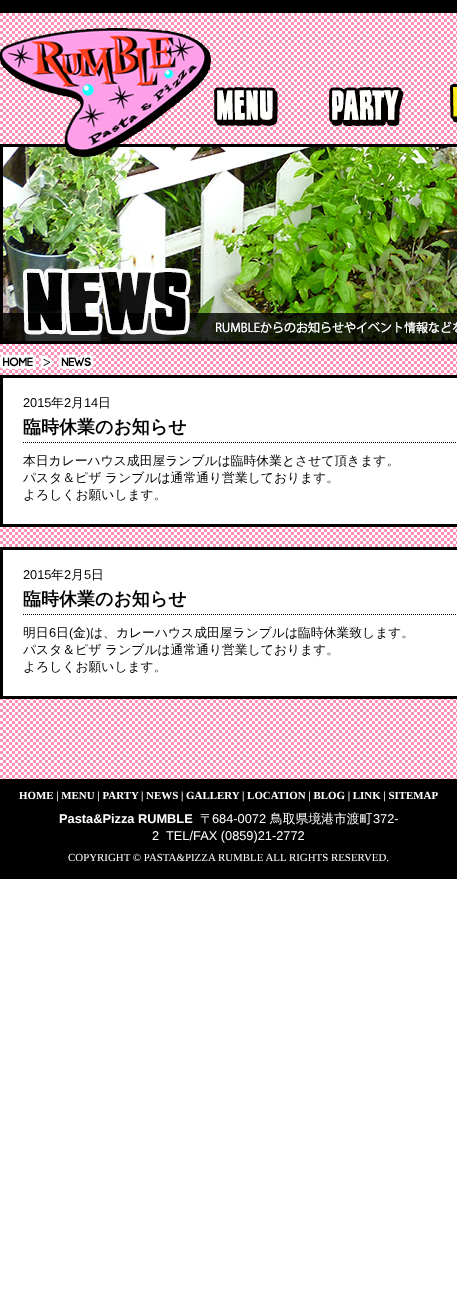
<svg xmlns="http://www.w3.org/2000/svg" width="457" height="1299">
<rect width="100%" height="100%" fill="#fff"/>
<image x="0" y="13" width="457" height="766" href="media/1.png"/>
<rect width="457" height="13" fill="#000"/>
<image x="0" y="144" width="457" height="200" href="media/6.png"/>
<image x="0" y="28" width="211" height="129" href="media/2.png"/>
<image x="214" y="87" width="64" height="39" href="media/3.png"/>
<image x="329" y="87" width="75" height="39" href="media/4.png"/>
<image x="450" y="84" width="7" height="39" href="media/5.png"/>
<image x="0" y="354" width="36" height="15" href="media/7.png"/>
<image x="40" y="355" width="13" height="14" href="media/8.png"/>
<image x="58" y="354" width="36" height="15" href="media/9.png"/>
<rect x="1.5" y="376.5" width="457" height="149" fill="#fff" stroke="#000" stroke-width="3"/>
<text x="23" y="407" style="font-family:Liberation Sans;font-size:12.8px;fill:#000">2015</text>
<text x="51" y="407" style="font-family:WenQuanYi Zen Hei;font-size:12.8px;font-weight:500;fill:#000">年</text>
<text x="64" y="407" style="font-family:Liberation Sans;font-size:12.8px;fill:#000">2</text>
<text x="71" y="407" style="font-family:WenQuanYi Zen Hei;font-size:12.8px;font-weight:500;fill:#000">月</text>
<text x="84" y="407" style="font-family:Liberation Sans;font-size:12.8px;fill:#000">14</text>
<text x="98" y="407" style="font-family:WenQuanYi Zen Hei;font-size:12.8px;font-weight:500;fill:#000">日</text>
<path d="M23 442.5h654" fill="none" stroke="#000" stroke-dasharray="1 1"/>
<text x="23" y="433" style="font-family:WenQuanYi Zen Hei;font-size:18px;font-weight:bold;fill:#000">臨時休業のお知らせ</text>
<text x="23" y="465" style="font-family:WenQuanYi Zen Hei;font-size:12.8px;font-weight:500;fill:#000">本日カレーハウス成田屋ランブルは臨時休業とさせて頂きます。</text>
<text x="23" y="482" style="font-family:WenQuanYi Zen Hei;font-size:12.8px;font-weight:500;fill:#000">パスタ＆ピザ ランブルは通常通り営業しております。</text>
<text x="23" y="499" style="font-family:WenQuanYi Zen Hei;font-size:12.8px;font-weight:500;fill:#000">よろしくお願いします。</text>
<rect x="1.5" y="548.5" width="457" height="149" fill="#fff" stroke="#000" stroke-width="3"/>
<text x="23" y="579" style="font-family:Liberation Sans;font-size:12.8px;fill:#000">2015</text>
<text x="51" y="579" style="font-family:WenQuanYi Zen Hei;font-size:12.8px;font-weight:500;fill:#000">年</text>
<text x="64" y="579" style="font-family:Liberation Sans;font-size:12.8px;fill:#000">2</text>
<text x="71" y="579" style="font-family:WenQuanYi Zen Hei;font-size:12.8px;font-weight:500;fill:#000">月</text>
<text x="84" y="579" style="font-family:Liberation Sans;font-size:12.8px;fill:#000">5</text>
<text x="91" y="579" style="font-family:WenQuanYi Zen Hei;font-size:12.8px;font-weight:500;fill:#000">日</text>
<path d="M23 614.5h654" fill="none" stroke="#000" stroke-dasharray="1 1"/>
<text x="23" y="605" style="font-family:WenQuanYi Zen Hei;font-size:18px;font-weight:bold;fill:#000">臨時休業のお知らせ</text>
<text x="23" y="637" style="font-family:WenQuanYi Zen Hei;font-size:12.8px;font-weight:500;fill:#000">明日</text>
<text x="49" y="637" style="font-family:Liberation Sans;font-size:12.8px;fill:#000">6</text>
<text x="56" y="637" style="font-family:WenQuanYi Zen Hei;font-size:12.8px;font-weight:500;fill:#000">日</text>
<text x="69" y="637" style="font-family:Liberation Sans;font-size:12.8px;fill:#000">(</text>
<text x="73" y="637" style="font-family:WenQuanYi Zen Hei;font-size:12.8px;font-weight:500;fill:#000">金</text>
<text x="86" y="637" style="font-family:Liberation Sans;font-size:12.8px;fill:#000">)</text>
<text x="90" y="637" style="font-family:WenQuanYi Zen Hei;font-size:12.8px;font-weight:500;fill:#000">は、カレーハウス成田屋ランブルは臨時休業致します。</text>
<text x="23" y="654" style="font-family:WenQuanYi Zen Hei;font-size:12.8px;font-weight:500;fill:#000">パスタ＆ピザ ランブルは通常通り営業しております。</text>
<text x="23" y="671" style="font-family:WenQuanYi Zen Hei;font-size:12.8px;font-weight:500;fill:#000">よろしくお願いします。</text>
<rect y="779" width="457" height="100" fill="#000"/>
<text x="19" y="799" style="font-family:Liberation Serif;font-size:10.9px;font-weight:bold;fill:#fff">HOME | MENU | PARTY</text>
<text x="141" y="799" style="font-family:Liberation Serif;font-size:10.9px;font-weight:bold;fill:#fff">| NEWS | GALLERY</text>
<text x="242" y="799" style="font-family:Liberation Serif;font-size:10.9px;font-weight:bold;fill:#fff">| LOCATION | BLOG | LINK | SITEMAP</text>
<text x="59" y="823" style="font-family:Liberation Sans;font-size:12.8px;font-weight:bold;fill:#fff">Pasta&amp;Pizza RUMBLE</text>
<text x="200" y="823" style="font-family:WenQuanYi Zen Hei;font-size:12.8px;font-weight:500;fill:#fff">〒</text>
<text x="212" y="823" style="font-family:Liberation Sans;font-size:12.8px;fill:#fff">684-0072</text>
<text x="270" y="823" style="font-family:WenQuanYi Zen Hei;font-size:12.8px;font-weight:500;fill:#fff">鳥取県境港市渡町</text>
<text x="373" y="823" style="font-family:Liberation Sans;font-size:12.8px;fill:#fff">372-</text>
<text x="152" y="840" style="font-family:Liberation Sans;font-size:12.8px;fill:#fff" xml:space="preserve">2  TEL/FAX (0859)21-2772</text>
<text x="68" y="861" style="font-family:Liberation Serif;font-size:10.9px;fill:#fff">COPYRIGHT © PASTA&amp;PIZZA RUMBLE ALL RIGHTS RESERVED.</text>
</svg>
